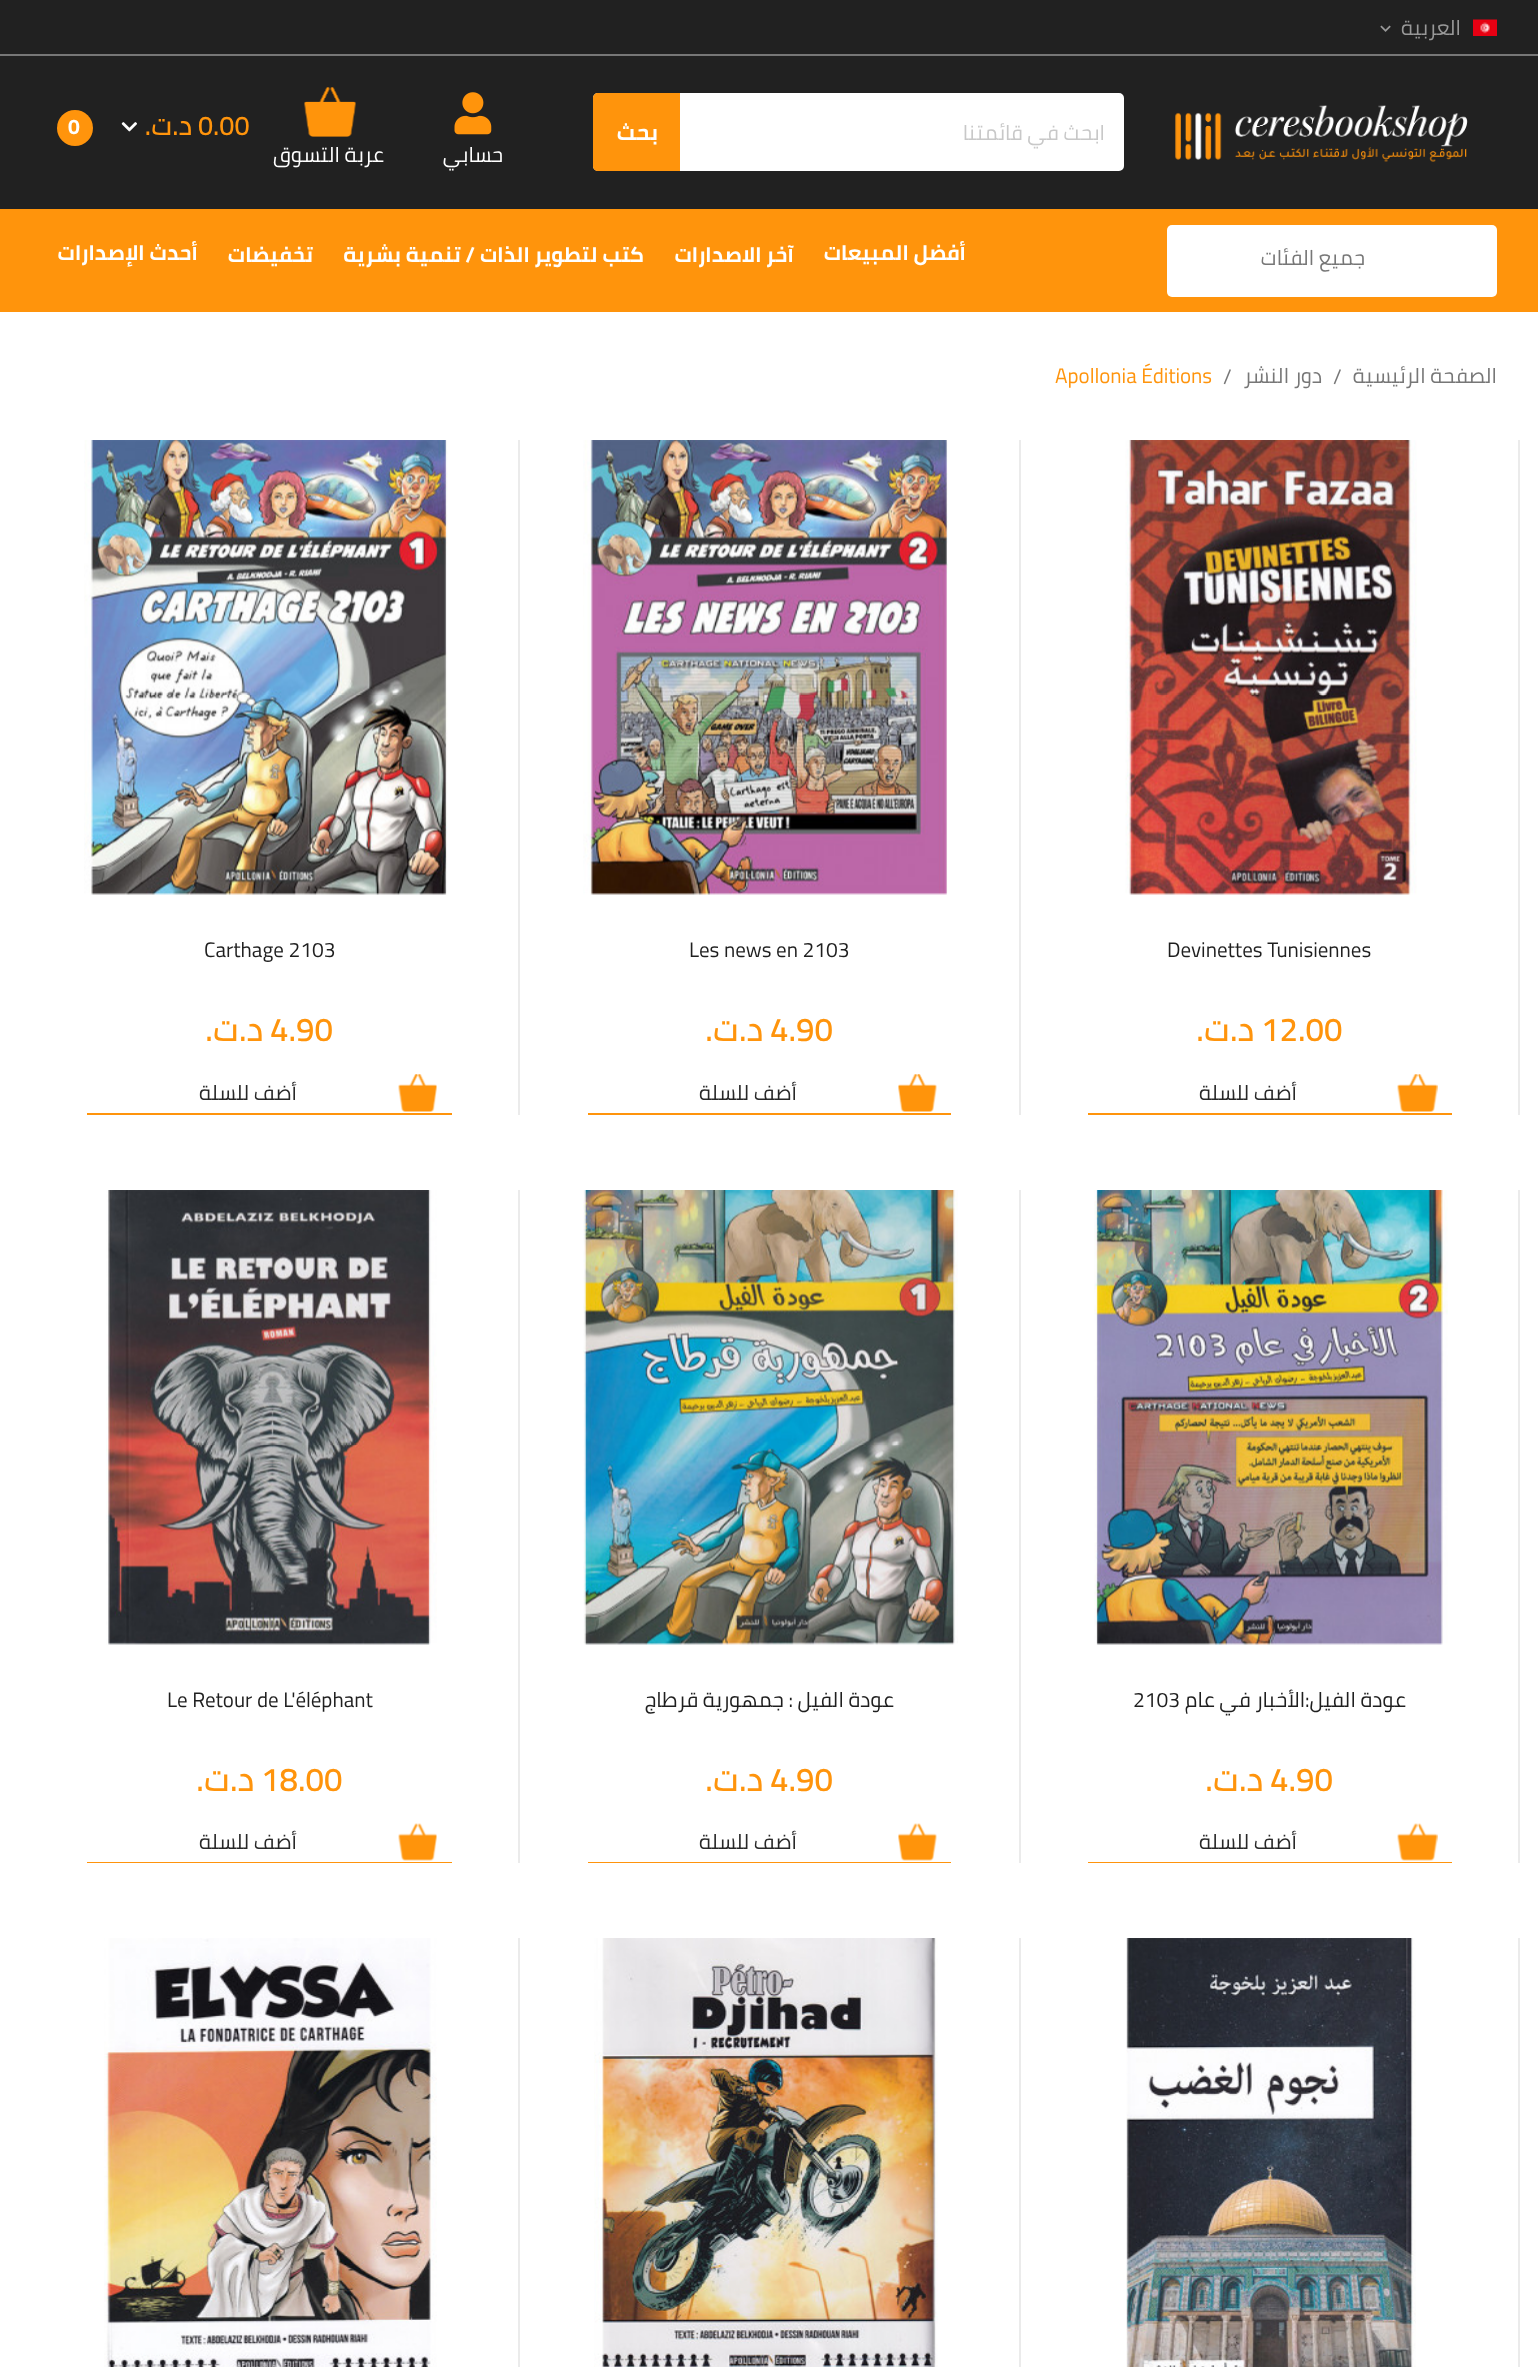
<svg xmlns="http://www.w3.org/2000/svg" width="1538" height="2367">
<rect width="100%" height="100%" fill="#fff"/>
<rect width="1538" height="54" fill="#212121"/>
<rect y="54" width="1538" height="2" fill="#777"/>
<image x="1473" y="19" width="24" height="17" href="media/1.png"/>
<text x="1461" y="35" style="font-family:Cairo;font-size:21px;direction:rtl;fill:#999">العربية</text>
<image x="1380" y="25" width="11" height="7" href="media/2.png"/>
<rect y="56" width="1538" height="153" fill="#212121"/>
<image x="1175" y="105" width="293" height="57" href="media/3.png"/>
<rect x="594.5" y="94.5" width="528" height="75" rx="3.5" fill="#fff" stroke="#fff" stroke-width="3"/>
<text x="1105" y="140" style="font-family:Cairo;font-size:21px;direction:rtl;fill:#c8c8c8">ابحث في قائمتنا</text>
<path d="M598 93h82v78h-82c-3 0-5-2-5-5v-68c0-3 2-5 5-5z" fill="#ff940c"/>
<text x="658" y="140" style="font-family:Cairo;font-size:22px;font-weight:bold;direction:rtl;fill:#fff">بحث</text>
<image x="304" y="87" width="52" height="50" href="media/4.png"/>
<text x="198" y="135" style="font-family:Cairo;font-size:27px;font-weight:600;fill:#ff940c">0.00</text>
<text x="192" y="135" style="font-family:Cairo;font-size:27px;font-weight:600;direction:rtl;fill:#ff940c">د.ت.</text>
<image x="121" y="122" width="16" height="10" href="media/5.png"/>
<circle cx="75" cy="128" r="18" fill="#ff940c"/>
<text x="68" y="134" style="font-family:Cairo;font-size:21px;font-weight:bold;fill:#fff">0</text>
<text x="384" y="162" style="font-family:Cairo;font-size:21px;direction:rtl;fill:#fff">عربة التسوق</text>
<image x="454" y="92" width="38" height="43" href="media/6.png"/>
<text x="503" y="162" style="font-family:Cairo;font-size:21px;direction:rtl;fill:#fff">حسابي</text>
<rect y="209" width="1538" height="103" fill="#ff940c"/>
<rect x="1167" y="225" width="330" height="72" rx="5" fill="#fff"/>
<text x="1365" y="265" style="font-family:Cairo;font-size:21px;direction:rtl;fill:#777">جميع الفئات</text>
<text x="966" y="260" style="font-family:Cairo;font-size:21px;font-weight:bold;direction:rtl;fill:#fff">أفضل المبيعات</text>
<text x="794" y="262" style="font-family:Cairo;font-size:21px;font-weight:bold;direction:rtl;fill:#fff">آخر الاصدارات</text>
<text x="644" y="262" style="font-family:Cairo;font-size:21px;font-weight:bold;direction:rtl;fill:#fff">كتب لتطوير الذات / تنمية بشرية</text>
<text x="313" y="262" style="font-family:Cairo;font-size:21px;font-weight:bold;direction:rtl;fill:#fff">تخفيضات</text>
<text x="198" y="260" style="font-family:Cairo;font-size:21px;font-weight:bold;direction:rtl;fill:#fff">أحدث الإصدارات</text>
<text x="1497" y="383" style="font-family:Cairo;font-size:21px;direction:rtl;fill:#777">الصفحة الرئيسية</text>
<text x="1333" y="384" style="font-family:Cairo;font-size:21px;fill:#777">/</text>
<text x="1322" y="383" style="font-family:Cairo;font-size:21px;direction:rtl;fill:#777">دور النشر</text>
<text x="1223" y="384" style="font-family:Cairo;font-size:21px;fill:#777">/</text>
<text x="1055" y="383" style="font-family:Cairo;font-size:21px;fill:#ff940c">Apollonia Éditions</text>
<rect x="1518" y="440" width="2" height="675" fill="#ebebeb"/>
<image x="1125" y="440" width="292" height="455" href="media/7.png"/>
<text x="1167" y="957" style="font-family:Cairo;font-size:21px;fill:#1f1f1f">Devinettes Tunisiennes</text>
<text x="1261" y="1041" style="font-family:Cairo;font-size:33px;font-weight:600;fill:#ff940c">12.00</text>
<text x="1254" y="1041" style="font-family:Cairo;font-size:33px;font-weight:600;direction:rtl;fill:#ff940c">د.ت.</text>
<rect x="1088" y="1113" width="364" height="2" fill="#ff940c"/>
<image x="1397" y="1074" width="41" height="38" href="media/8.png"/>
<text x="1297" y="1100" style="font-family:Cairo;font-size:21px;direction:rtl;fill:#282828">أضف للسلة</text>
<rect x="1019" y="440" width="2" height="675" fill="#ebebeb"/>
<image x="583" y="440" width="365" height="455" href="media/9.png"/>
<text x="689" y="957" style="font-family:Cairo;font-size:21px;fill:#1f1f1f">Les news en 2103</text>
<text x="770" y="1041" style="font-family:Cairo;font-size:33px;font-weight:600;fill:#ff940c">4.90</text>
<text x="763" y="1041" style="font-family:Cairo;font-size:33px;font-weight:600;direction:rtl;fill:#ff940c">د.ت.</text>
<rect x="588" y="1113" width="363" height="2" fill="#ff940c"/>
<image x="898" y="1074" width="39" height="38" href="media/10.png"/>
<text x="797" y="1100" style="font-family:Cairo;font-size:21px;direction:rtl;fill:#282828">أضف للسلة</text>
<rect x="518" y="440" width="2" height="675" fill="#ebebeb"/>
<image x="84" y="440" width="364" height="455" href="media/11.png"/>
<text x="204" y="957" style="font-family:Cairo;font-size:21px;fill:#1f1f1f">Carthage 2103</text>
<text x="270" y="1041" style="font-family:Cairo;font-size:33px;font-weight:600;fill:#ff940c">4.90</text>
<text x="263" y="1041" style="font-family:Cairo;font-size:33px;font-weight:600;direction:rtl;fill:#ff940c">د.ت.</text>
<rect x="87" y="1113" width="365" height="2" fill="#ff940c"/>
<image x="398" y="1074" width="39" height="38" href="media/12.png"/>
<text x="297" y="1100" style="font-family:Cairo;font-size:21px;direction:rtl;fill:#282828">أضف للسلة</text>
<rect x="1518" y="1190" width="2" height="673" fill="#ebebeb"/>
<image x="1094" y="1190" width="354" height="455" href="media/13.png"/>
<text x="1406" y="1707" style="font-family:Cairo;font-size:21px;direction:rtl;fill:#1f1f1f">عودة الفيل:الأخبار في عام</text>
<text x="1133" y="1707" style="font-family:Cairo;font-size:21px;fill:#1f1f1f">2103</text>
<text x="1270" y="1791" style="font-family:Cairo;font-size:33px;font-weight:600;fill:#ff940c">4.90</text>
<text x="1263" y="1791" style="font-family:Cairo;font-size:33px;font-weight:600;direction:rtl;fill:#ff940c">د.ت.</text>
<rect x="1088" y="1862" width="364" height="1" fill="#ff940c"/>
<image x="1397" y="1823" width="41" height="38" href="media/14.png"/>
<text x="1297" y="1849" style="font-family:Cairo;font-size:21px;direction:rtl;fill:#282828">أضف للسلة</text>
<rect x="1019" y="1190" width="2" height="673" fill="#ebebeb"/>
<image x="583" y="1190" width="375" height="455" href="media/15.png"/>
<text x="894" y="1707" style="font-family:Cairo;font-size:21px;direction:rtl;fill:#1f1f1f">عودة الفيل : جمهورية قرطاج</text>
<text x="770" y="1791" style="font-family:Cairo;font-size:33px;font-weight:600;fill:#ff940c">4.90</text>
<text x="763" y="1791" style="font-family:Cairo;font-size:33px;font-weight:600;direction:rtl;fill:#ff940c">د.ت.</text>
<rect x="588" y="1862" width="363" height="1" fill="#ff940c"/>
<image x="898" y="1823" width="39" height="38" href="media/16.png"/>
<text x="797" y="1849" style="font-family:Cairo;font-size:21px;direction:rtl;fill:#282828">أضف للسلة</text>
<rect x="518" y="1190" width="2" height="673" fill="#ebebeb"/>
<image x="106" y="1190" width="331" height="455" href="media/17.png"/>
<text x="167" y="1707" style="font-family:Cairo;font-size:21px;fill:#1f1f1f">Le Retour de L'éléphant</text>
<text x="261" y="1791" style="font-family:Cairo;font-size:33px;font-weight:600;fill:#ff940c">18.00</text>
<text x="254" y="1791" style="font-family:Cairo;font-size:33px;font-weight:600;direction:rtl;fill:#ff940c">د.ت.</text>
<rect x="87" y="1862" width="365" height="1" fill="#ff940c"/>
<image x="398" y="1823" width="39" height="38" href="media/18.png"/>
<text x="297" y="1849" style="font-family:Cairo;font-size:21px;direction:rtl;fill:#282828">أضف للسلة</text>
<rect x="1518" y="1938" width="2" height="429" fill="#ebebeb"/>
<image x="1126" y="1938" width="290" height="429" href="media/19.png"/>
<rect x="1019" y="1938" width="2" height="429" fill="#ebebeb"/>
<image x="594" y="1938" width="344" height="429" href="media/20.png"/>
<rect x="518" y="1938" width="2" height="429" fill="#ebebeb"/>
<image x="104" y="1938" width="333" height="429" href="media/21.png"/>
</svg>
